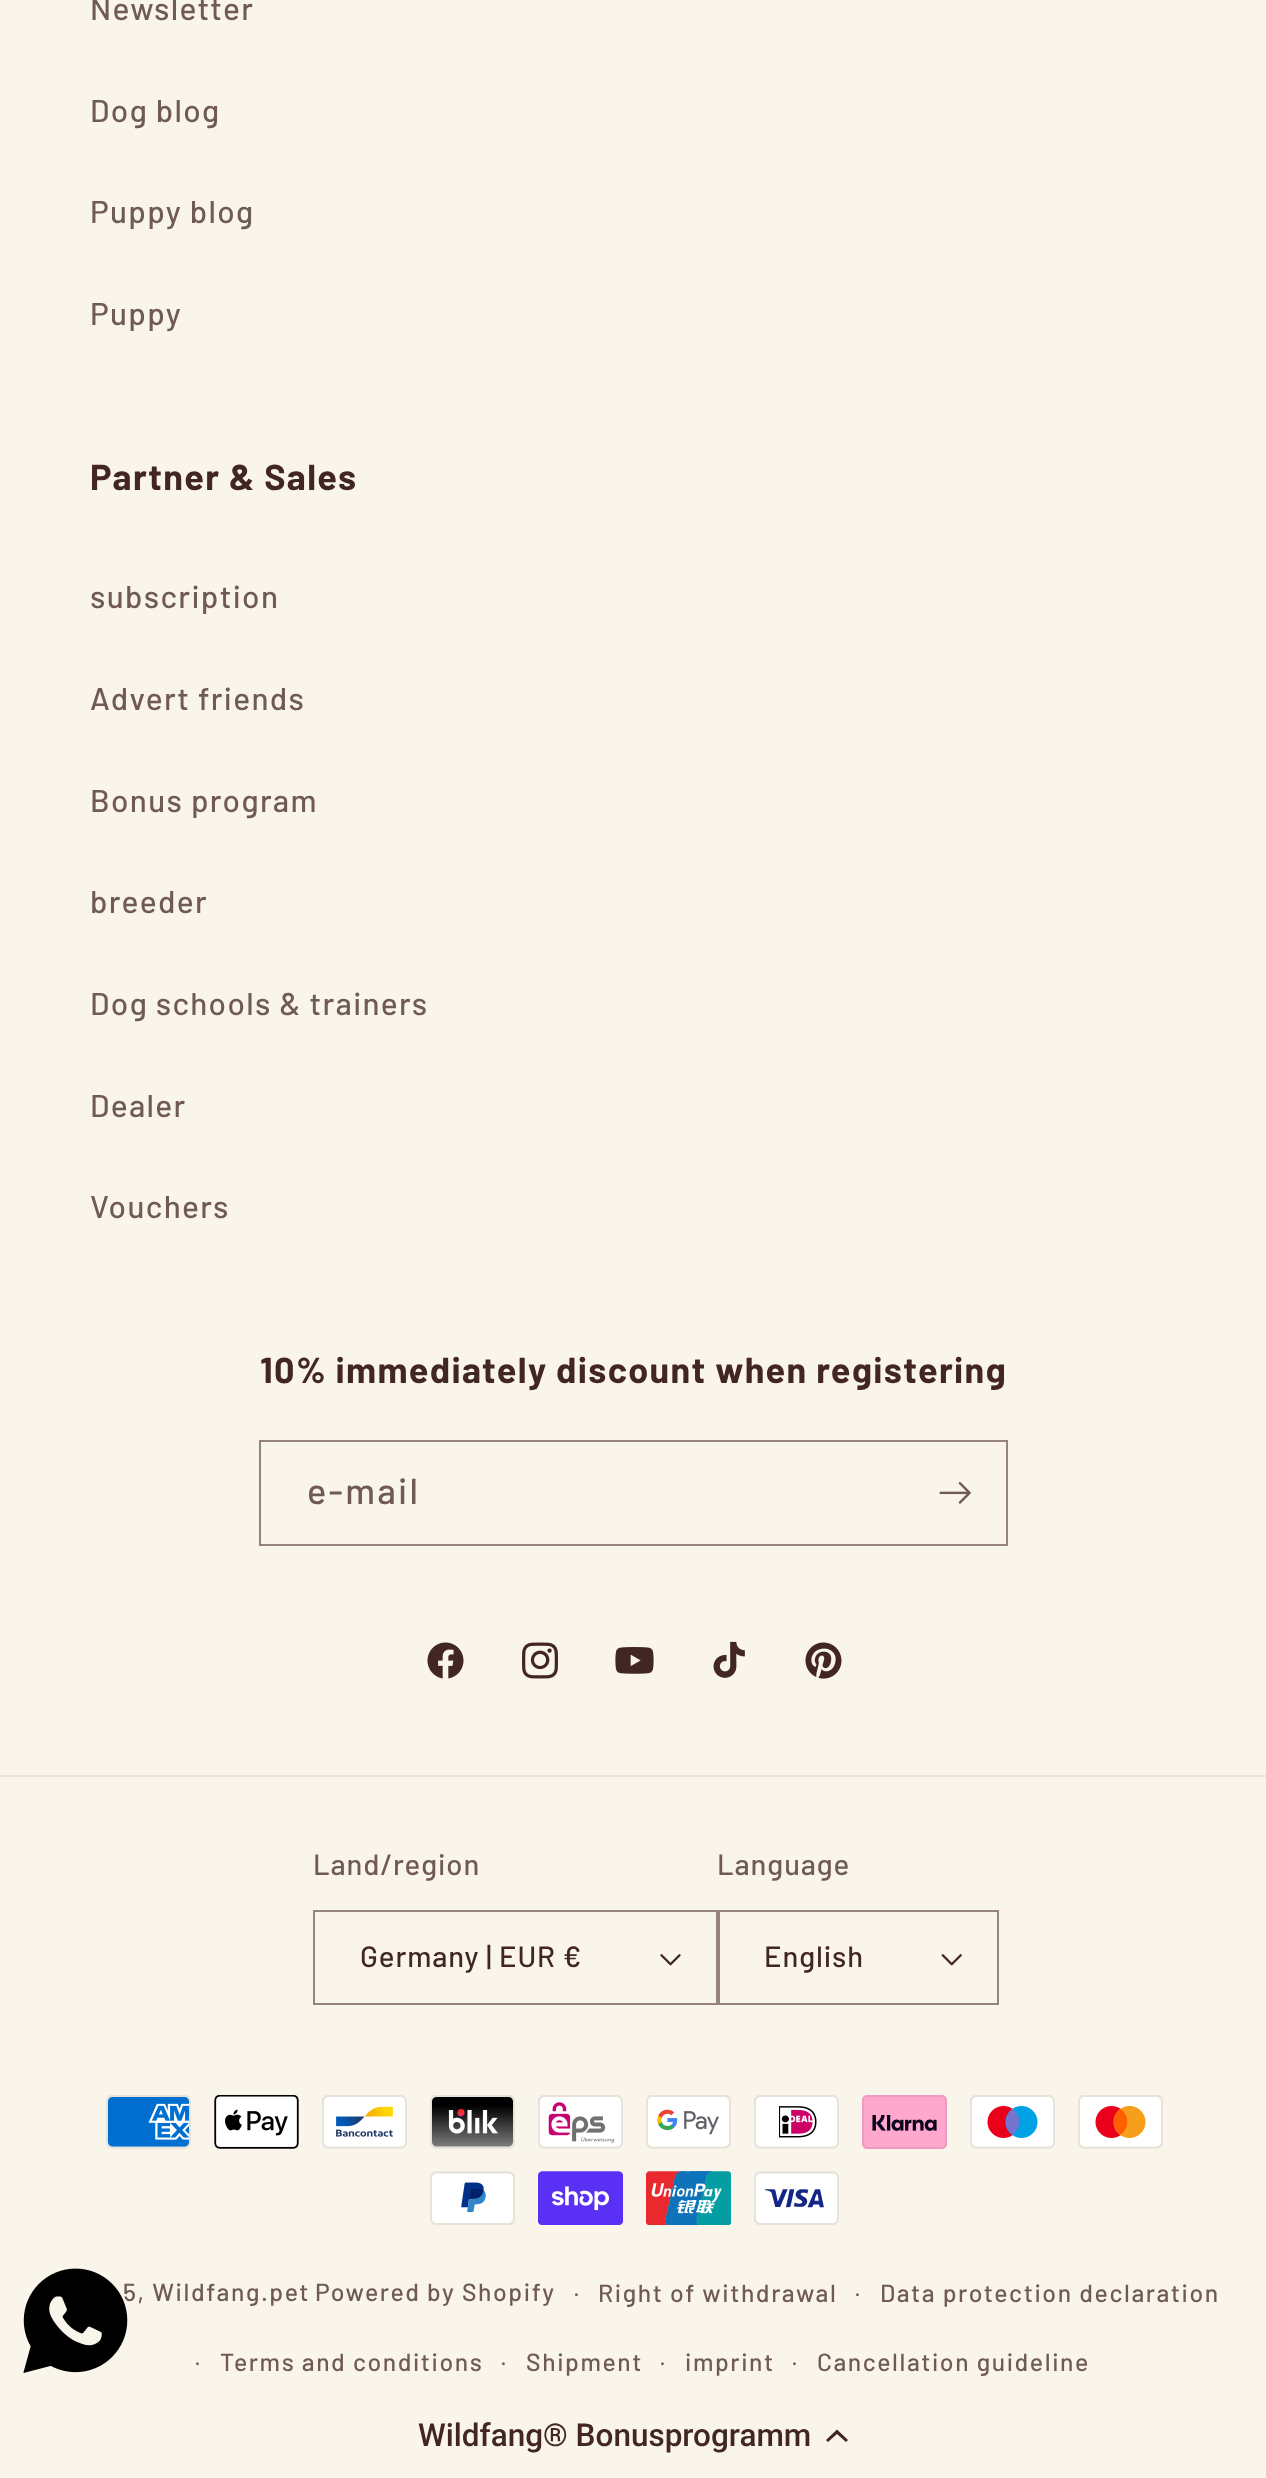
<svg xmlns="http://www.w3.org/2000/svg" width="1266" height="2478">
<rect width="100%" height="100%" fill="#faf5ea"/>
<text x="123" y="2301" style="font-family:Barlow;font-size:24.75px;font-weight:500;letter-spacing:1.6px;fill:#705a54">5, Wildfang.pet</text>
<image x="23" y="2268" width="105" height="105" href="media/1.png"/>
<text x="90" y="20" style="font-family:Barlow;font-size:31.5px;font-weight:500;letter-spacing:1.35px;fill:#705a54">Newsletter</text>
<text x="90" y="122" style="font-family:Barlow;font-size:31.5px;font-weight:500;letter-spacing:1.35px;fill:#705a54">Dog blog</text>
<text x="90" y="223" style="font-family:Barlow;font-size:31.5px;font-weight:500;letter-spacing:1.35px;fill:#705a54">Puppy blog</text>
<text x="90" y="325" style="font-family:Barlow;font-size:31.5px;font-weight:500;letter-spacing:1.35px;fill:#705a54">Puppy</text>
<text x="90" y="490" style="font-family:Barlow;font-size:36px;font-weight:bold;letter-spacing:1.35px;fill:#422622">Partner &amp; Sales</text>
<text x="90" y="608" style="font-family:Barlow;font-size:31.5px;font-weight:500;letter-spacing:1.35px;fill:#705a54">subscription</text>
<text x="90" y="710" style="font-family:Barlow;font-size:31.5px;font-weight:500;letter-spacing:1.35px;fill:#705a54">Advert friends</text>
<text x="90" y="812" style="font-family:Barlow;font-size:31.5px;font-weight:500;letter-spacing:1.35px;fill:#705a54">Bonus program</text>
<text x="90" y="913" style="font-family:Barlow;font-size:31.5px;font-weight:500;letter-spacing:1.35px;fill:#705a54">breeder</text>
<text x="90" y="1015" style="font-family:Barlow;font-size:31.5px;font-weight:500;letter-spacing:1.35px;fill:#705a54">Dog schools &amp; trainers</text>
<text x="90" y="1117" style="font-family:Barlow;font-size:31.5px;font-weight:500;letter-spacing:1.35px;fill:#705a54">Dealer</text>
<text x="90" y="1218" style="font-family:Barlow;font-size:31.5px;font-weight:500;letter-spacing:1.35px;fill:#705a54">Vouchers</text>
<text x="260" y="1383" style="font-family:Barlow;font-size:36px;font-weight:bold;letter-spacing:1.35px;fill:#422622">10% immediately discount when registering</text>
<rect x="260" y="1441" width="747" height="104" fill="none" stroke="#95837c" stroke-width="2"/>
<text x="307" y="1504" style="font-family:Barlow;font-size:36px;font-weight:500;letter-spacing:2.25px;fill:#705a54">e-mail</text>
<image x="939" y="1482" width="32" height="22" href="media/2.png"/>
<image x="427" y="1642" width="37" height="37" href="media/3.png"/>
<image x="522" y="1642" width="36" height="37" href="media/4.png"/>
<image x="615" y="1647" width="39" height="27" href="media/5.png"/>
<image x="713" y="1641" width="32" height="37" href="media/6.png"/>
<image x="805" y="1642" width="37" height="37" href="media/7.png"/>
<rect y="1775" width="1266" height="2" fill="#ebe4da"/>
<text x="313" y="1875" style="font-family:Barlow;font-size:29.25px;font-weight:500;letter-spacing:0.9px;fill:#705a54">Land/region</text>
<image x="660" y="1954" width="21" height="12" href="media/8.png"/>
<rect x="314" y="1911" width="403" height="93" fill="none" stroke="#95837c" stroke-width="2"/>
<text x="360" y="1967" style="font-family:Barlow;font-size:29.25px;font-weight:500;letter-spacing:0.9px;fill:#422622">Germany | EUR €</text>
<text x="717" y="1875" style="font-family:Barlow;font-size:29.25px;font-weight:500;letter-spacing:0.9px;fill:#705a54">Language</text>
<image x="941" y="1954" width="21" height="12" href="media/9.png"/>
<rect x="719" y="1911" width="279" height="93" fill="none" stroke="#95837c" stroke-width="2"/>
<text x="764" y="1967" style="font-family:Barlow;font-size:29.25px;font-weight:500;letter-spacing:0.9px;fill:#422622">English</text>
<image x="106" y="2095" width="85" height="54" href="media/10.png"/>
<image x="214" y="2095" width="85" height="54" href="media/11.png"/>
<image x="322" y="2095" width="85" height="54" href="media/12.png"/>
<image x="430" y="2095" width="85" height="54" href="media/13.png"/>
<image x="538" y="2095" width="85" height="54" href="media/14.png"/>
<image x="646" y="2095" width="85" height="54" href="media/15.png"/>
<image x="754" y="2095" width="85" height="54" href="media/16.png"/>
<image x="862" y="2095" width="85" height="54" href="media/17.png"/>
<image x="970" y="2095" width="85" height="54" href="media/18.png"/>
<image x="1078" y="2095" width="85" height="54" href="media/19.png"/>
<image x="430" y="2171" width="85" height="54" href="media/20.png"/>
<image x="538" y="2171" width="85" height="54" href="media/21.png"/>
<image x="646" y="2171" width="85" height="54" href="media/22.png"/>
<image x="754" y="2171" width="85" height="54" href="media/23.png"/>
<text x="315" y="2301" style="font-family:Barlow;font-size:24.75px;font-weight:500;letter-spacing:1.6px;fill:#705a54">Powered by Shopify</text>
<text x="574" y="2301" style="font-family:Barlow;font-size:22px;font-weight:500;letter-spacing:1.6px;fill:#705a54">·</text>
<text x="598" y="2302" style="font-family:Barlow;font-size:24.75px;font-weight:500;letter-spacing:1.6px;fill:#705a54">Right of withdrawal</text>
<text x="855" y="2301" style="font-family:Barlow;font-size:22px;font-weight:500;letter-spacing:1.6px;fill:#705a54">·</text>
<text x="880" y="2302" style="font-family:Barlow;font-size:24.75px;font-weight:500;letter-spacing:1.6px;fill:#705a54">Data protection declaration</text>
<text x="195" y="2370" style="font-family:Barlow;font-size:22px;font-weight:500;letter-spacing:1.6px;fill:#705a54">·</text>
<text x="220" y="2371" style="font-family:Barlow;font-size:24.75px;font-weight:500;letter-spacing:1.6px;fill:#705a54">Terms and conditions</text>
<text x="501" y="2370" style="font-family:Barlow;font-size:22px;font-weight:500;letter-spacing:1.6px;fill:#705a54">·</text>
<text x="526" y="2371" style="font-family:Barlow;font-size:24.75px;font-weight:500;letter-spacing:1.6px;fill:#705a54">Shipment</text>
<text x="660" y="2370" style="font-family:Barlow;font-size:22px;font-weight:500;letter-spacing:1.6px;fill:#705a54">·</text>
<text x="685" y="2371" style="font-family:Barlow;font-size:24.75px;font-weight:500;letter-spacing:1.6px;fill:#705a54">imprint</text>
<text x="792" y="2370" style="font-family:Barlow;font-size:22px;font-weight:500;letter-spacing:1.6px;fill:#705a54">·</text>
<text x="817" y="2371" style="font-family:Barlow;font-size:24.75px;font-weight:500;letter-spacing:1.6px;fill:#705a54">Cancellation guideline</text>
<text x="418" y="2446" style="font-family:Roboto;font-size:31.5px;font-weight:500;fill:#422622">Wildfang® Bonusprogramm</text>
<path d="M837 2434l-9 8l-2-2l11-10.5l11 10.5l-2 2z" fill="#422622"/>
</svg>
